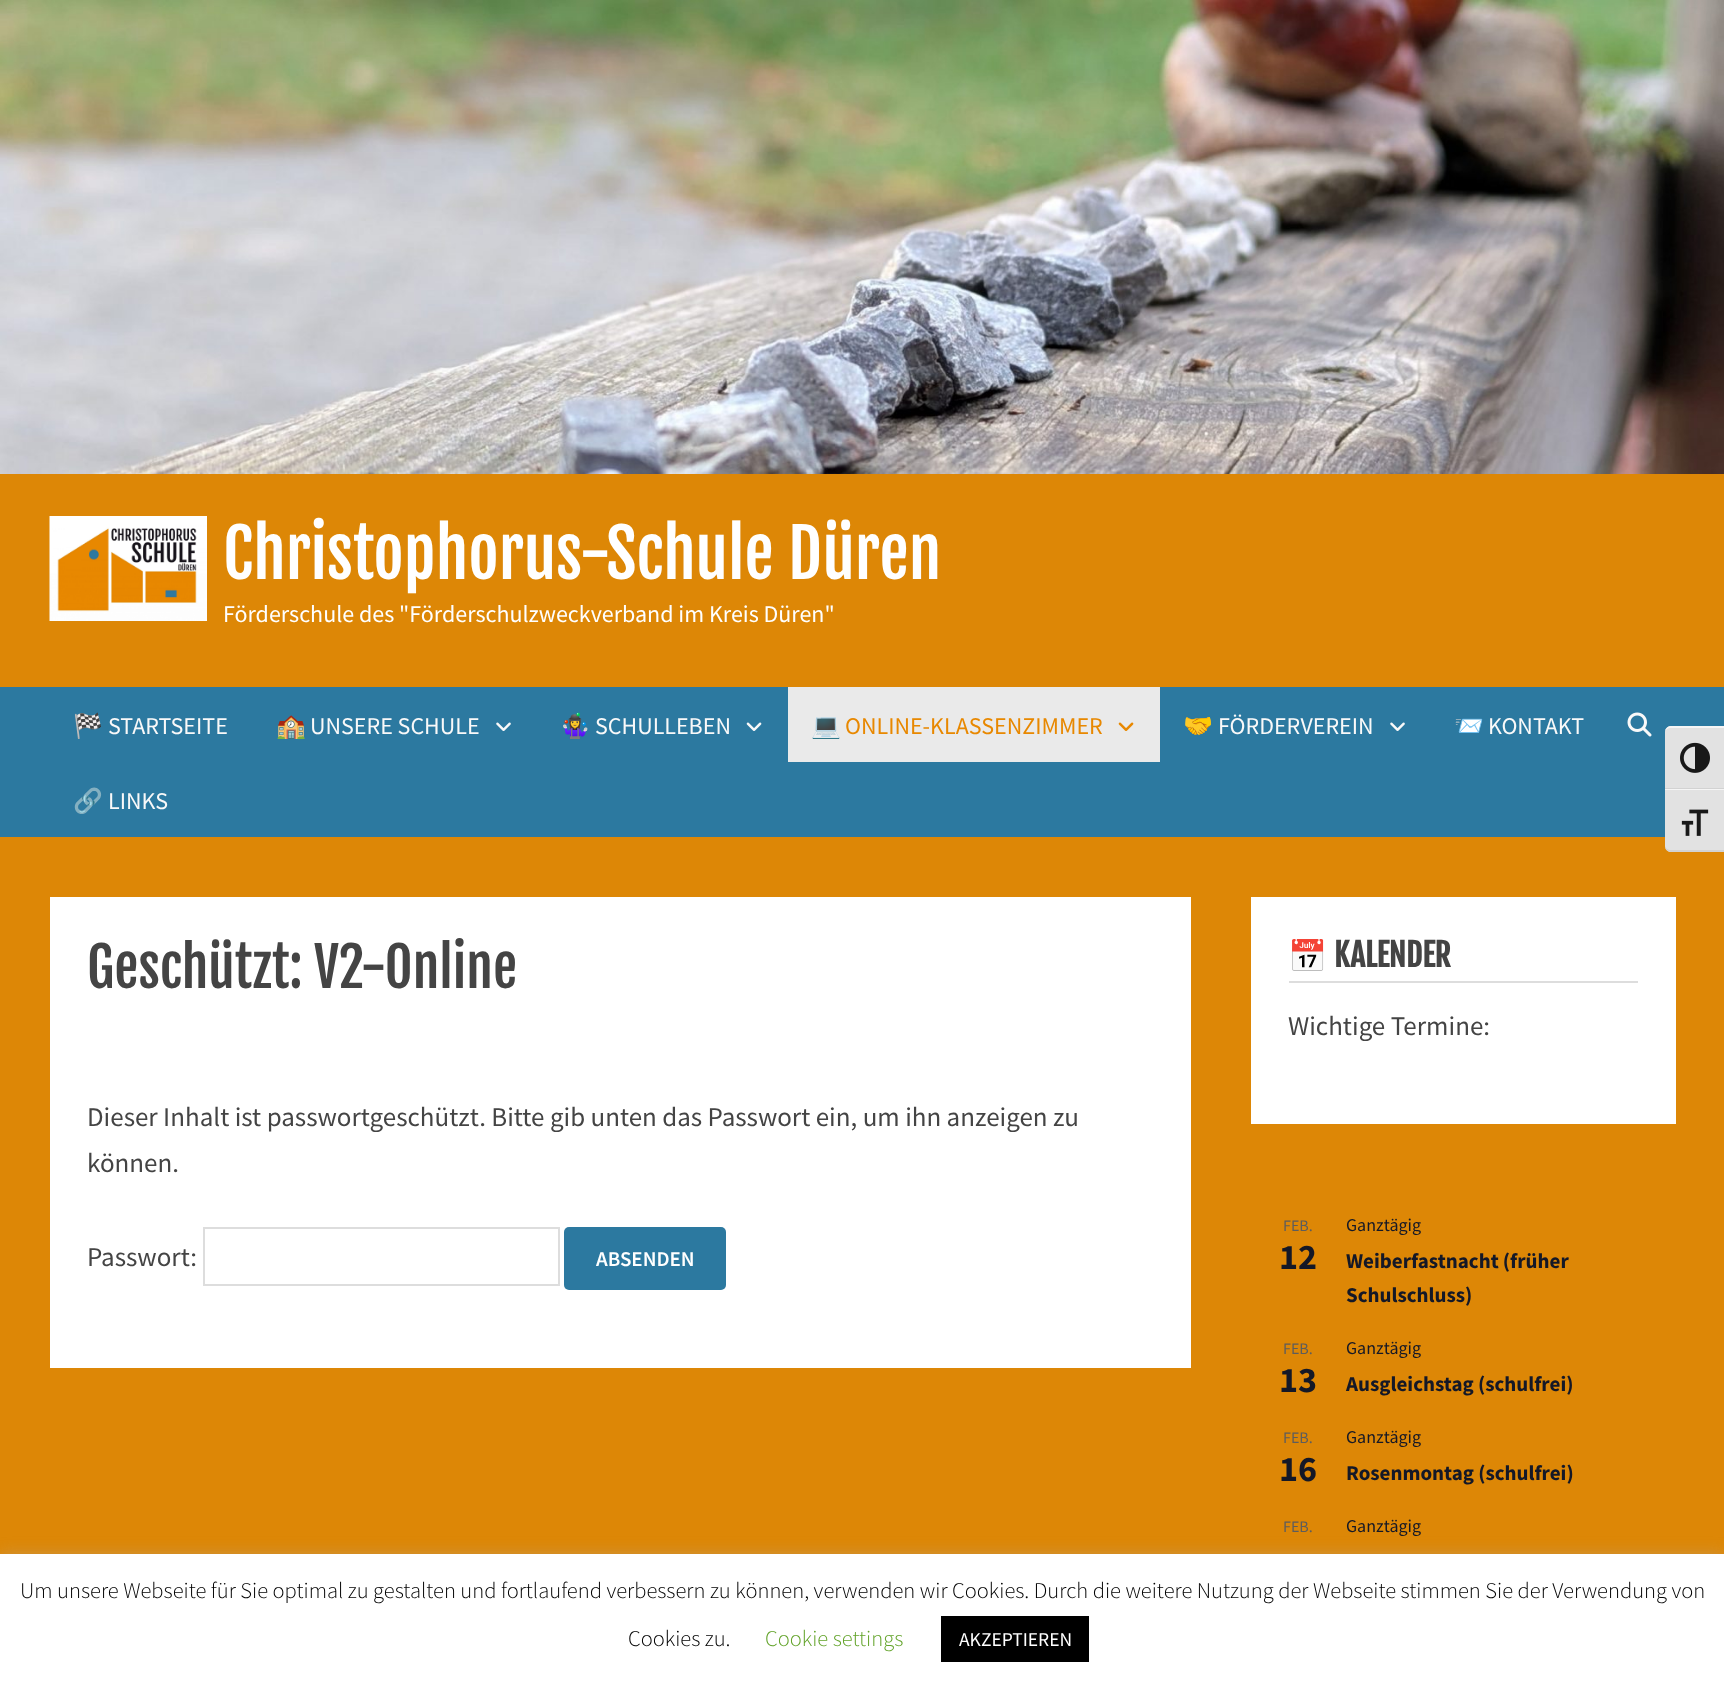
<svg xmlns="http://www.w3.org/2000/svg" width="1724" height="1687">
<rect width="100%" height="100%" fill="#dd8706"/>
<image x="0" y="0" width="1724" height="474" href="media/1.png"/>
<image x="49" y="516" width="158" height="105" href="media/2.png"/>
<text x="223" y="579" style="font-family:Fjalla One;font-size:66px;fill:#fff">Christophorus-Schule Düren</text>
<text x="223" y="622" style="font-family:Source Sans Pro;font-size:24px;fill:#fff">Förderschule des "Förderschulzweckverband im Kreis Düren"</text>
<rect y="687" width="1724" height="150" fill="#2c79a0"/>
<text x="73" y="734" style="font-family:Noto Color Emoji;font-size:24px;fill:#f9f9f9">🏁</text>
<text x="108" y="734" style="font-family:Source Sans Pro;font-size:24px;fill:#f9f9f9">STARTSEITE</text>
<text x="276" y="734" style="font-family:Noto Color Emoji;font-size:24px;fill:#f9f9f9">🏫</text>
<text x="310" y="734" style="font-family:Source Sans Pro;font-size:24px;fill:#f9f9f9">UNSERE SCHULE</text>
<image x="496" y="722" width="15" height="9" href="media/3.png"/>
<text x="560" y="734" style="font-family:Noto Color Emoji;font-size:24px;fill:#f9f9f9">🤹‍♀️</text>
<text x="595" y="734" style="font-family:Source Sans Pro;font-size:24px;fill:#f9f9f9">SCHULLEBEN</text>
<image x="746" y="722" width="16" height="9" href="media/4.png"/>
<rect x="788" y="687" width="372" height="75" fill="#eaeaea"/>
<text x="811" y="734" style="font-family:Noto Color Emoji;font-size:24px;fill:#e88800">💻</text>
<text x="845" y="734" style="font-family:Source Sans Pro;font-size:24px;fill:#e88800">ONLINE-KLASSENZIMMER</text>
<image x="1118" y="722" width="16" height="9" href="media/5.png"/>
<text x="1183" y="734" style="font-family:Noto Color Emoji;font-size:24px;fill:#f9f9f9">🤝</text>
<text x="1218" y="734" style="font-family:Source Sans Pro;font-size:24px;fill:#f9f9f9">FÖRDERVEREIN</text>
<image x="1390" y="722" width="15" height="9" href="media/3.png"/>
<text x="1454" y="734" style="font-family:Noto Color Emoji;font-size:24px;fill:#f9f9f9">📨</text>
<text x="1488" y="734" style="font-family:Source Sans Pro;font-size:24px;fill:#f9f9f9">KONTAKT</text>
<text x="73" y="809" style="font-family:Noto Color Emoji;font-size:24px;fill:#f9f9f9">🔗</text>
<text x="108" y="809" style="font-family:Source Sans Pro;font-size:24px;fill:#f9f9f9">LINKS</text>
<image x="1627" y="712" width="25" height="25" href="media/6.png"/>
<rect x="50" y="897" width="1141" height="471" fill="#fff"/>
<text x="87" y="988" style="font-family:Fjalla One;font-size:54px;fill:#444">Geschützt: V2-Online</text>
<text x="87" y="1126" style="font-family:Source Sans Pro;font-size:27px;fill:#444">Dieser Inhalt ist passwortgeschützt. Bitte gib unten das Passwort ein, um ihn anzeigen zu</text>
<text x="87" y="1172" style="font-family:Source Sans Pro;font-size:27px;fill:#444">können.</text>
<text x="87" y="1266" style="font-family:Source Sans Pro;font-size:27px;fill:#444">Passwort:</text>
<rect x="204" y="1228" width="355" height="57" fill="none" stroke="#ddd" stroke-width="2"/>
<rect x="564" y="1227" width="162" height="63" rx="5" fill="#2c79a0"/>
<text x="596" y="1266" style="font-family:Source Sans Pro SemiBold;font-size:21px;font-weight:600;fill:#fff">ABSENDEN</text>
<rect x="1251" y="897" width="425" height="227" fill="#fff"/>
<rect x="1289" y="981" width="349" height="2" fill="#ddd"/>
<text x="1288" y="967" style="font-family:Noto Color Emoji;font-size:31.5px;font-weight:bold;fill:#444">📅</text>
<text x="1334" y="967" style="font-family:Fjalla One;font-size:31.5px;font-weight:bold;fill:#444">KALENDER</text>
<text x="1288" y="1035" style="font-family:Source Sans Pro;font-size:27px;fill:#444">Wichtige Termine:</text>
<text x="1283" y="1231" style="font-family:Source Sans Pro;font-size:16px;fill:#5d5d5d">FEB.</text>
<text x="1279" y="1269" style="font-family:Source Sans Pro;font-size:36px;font-weight:bold;fill:#141827">12</text>
<text x="1346" y="1231" style="font-family:Source Sans Pro;font-size:18px;fill:#141827">Ganztägig</text>
<text x="1346" y="1268" style="font-family:Source Sans Pro;font-size:21px;font-weight:bold;fill:#141827">Weiberfastnacht (früher</text>
<text x="1346" y="1302" style="font-family:Source Sans Pro;font-size:21px;font-weight:bold;fill:#141827">Schulschluss)</text>
<text x="1283" y="1354" style="font-family:Source Sans Pro;font-size:16px;fill:#5d5d5d">FEB.</text>
<text x="1279" y="1392" style="font-family:Source Sans Pro;font-size:36px;font-weight:bold;fill:#141827">13</text>
<text x="1346" y="1354" style="font-family:Source Sans Pro;font-size:18px;fill:#141827">Ganztägig</text>
<text x="1346" y="1391" style="font-family:Source Sans Pro;font-size:21px;font-weight:bold;fill:#141827">Ausgleichstag (schulfrei)</text>
<text x="1283" y="1443" style="font-family:Source Sans Pro;font-size:16px;fill:#5d5d5d">FEB.</text>
<text x="1279" y="1481" style="font-family:Source Sans Pro;font-size:36px;font-weight:bold;fill:#141827">16</text>
<text x="1346" y="1443" style="font-family:Source Sans Pro;font-size:18px;fill:#141827">Ganztägig</text>
<text x="1346" y="1480" style="font-family:Source Sans Pro;font-size:21px;font-weight:bold;fill:#141827">Rosenmontag (schulfrei)</text>
<text x="1283" y="1532" style="font-family:Source Sans Pro;font-size:16px;fill:#5d5d5d">FEB.</text>
<text x="1346" y="1532" style="font-family:Source Sans Pro;font-size:18px;fill:#141827">Ganztägig</text>
<path d="M1671 726h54v63h-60v-57c0-3.5 2.5-6 6-6z" fill="#e2e2e2"/>
<path d="M1671 728h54v-2h-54c-3 0-6 3-6 6c0-2 3-4 6-4z" fill="#f5f5f5"/>
<rect x="1665" y="788" width="59" height="1" fill="#d2d2d2"/>
<image x="1680" y="742" width="30" height="31" href="media/7.png"/>
<path d="M1665 789h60v63h-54c-3.5 0-6-2.5-6-6z" fill="#e2e2e2"/>
<rect x="1665" y="789" width="59" height="1" fill="#f5f5f5"/>
<path d="M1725 852v-2h-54c-3 0-6-2-6-4c0 3 3 6 6 6z" fill="#d2d2d2"/>
<image x="1681" y="809" width="28" height="27" href="media/8.png"/>
<rect y="1553" width="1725" height="133" fill="#acabab4d" filter="blur(7.5px)"/>
<rect y="1554" width="1724" height="133" fill="#fff"/>
<text x="20" y="1598" style="font-family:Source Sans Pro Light;font-size:22.5px;font-weight:300;fill:#000">Um unsere Webseite für Sie optimal zu gestalten und fortlaufend verbessern zu können, verwenden wir Cookies. Durch die weitere Nutzung der Webseite stimmen Sie der Verwendung von</text>
<text x="628" y="1646" style="font-family:Source Sans Pro Light;font-size:22.5px;font-weight:300;fill:#000">Cookies zu.</text>
<text x="765" y="1646" style="font-family:Source Sans Pro Light;font-size:22.5px;font-weight:300;fill:#62a329">Cookie settings</text>
<rect x="941" y="1616" width="148" height="46" fill="#000"/>
<text x="959" y="1646" style="font-family:Source Sans Pro;font-size:19.5px;fill:#fff">AKZEPTIEREN</text>
</svg>
